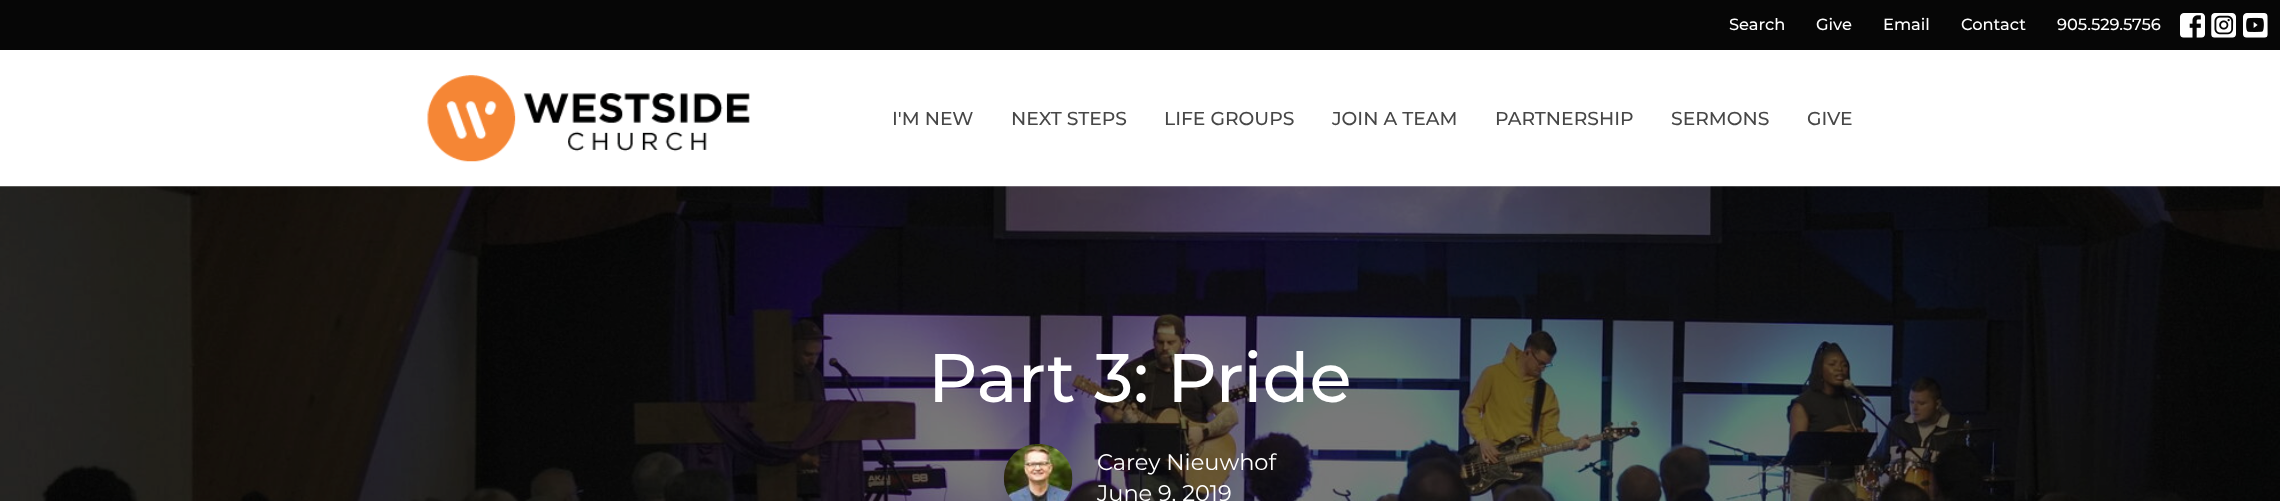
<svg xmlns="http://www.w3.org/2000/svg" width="2280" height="501">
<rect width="100%" height="100%" fill="#fff"/>
<rect width="2280" height="50" fill="#060606"/>
<text x="1729" y="30" style="font-family:Montserrat;font-size:16.25px;font-weight:500;fill:#fff">Search</text>
<text x="1816" y="30" style="font-family:Montserrat;font-size:16.25px;font-weight:500;fill:#fff">Give</text>
<text x="1883" y="30" style="font-family:Montserrat;font-size:16.25px;font-weight:500;fill:#fff">Email</text>
<text x="1961" y="30" style="font-family:Montserrat;font-size:16.25px;font-weight:500;fill:#fff">Contact</text>
<text x="2057" y="30" style="font-family:Montserrat;font-size:16.25px;font-weight:500;fill:#fff">905.529.5756</text>
<image x="2180" y="13" width="25" height="25" href="media/1.png"/>
<image x="2211" y="13" width="25" height="25" href="media/2.png"/>
<image x="2243" y="13" width="25" height="25" href="media/3.png"/>
<image x="427" y="75" width="323" height="87" href="media/4.png"/>
<text x="892" y="125" style="font-family:Montserrat;font-size:18.75px;font-weight:500;fill:#474747">I'M NEW</text>
<text x="1011" y="125" style="font-family:Montserrat;font-size:18.75px;font-weight:500;fill:#474747">NEXT STEPS</text>
<text x="1164" y="125" style="font-family:Montserrat;font-size:18.75px;font-weight:500;fill:#474747">LIFE GROUPS</text>
<text x="1332" y="125" style="font-family:Montserrat;font-size:18.75px;font-weight:500;fill:#474747">JOIN A TEAM</text>
<text x="1495" y="125" style="font-family:Montserrat;font-size:18.75px;font-weight:500;fill:#474747">PARTNERSHIP</text>
<text x="1671" y="125" style="font-family:Montserrat;font-size:18.75px;font-weight:500;fill:#474747">SERMONS</text>
<text x="1807" y="125" style="font-family:Montserrat;font-size:18.75px;font-weight:500;fill:#474747">GIVE</text>
<image x="0" y="186" width="2280" height="315" href="media/5.png"/>
<text x="928" y="402" style="font-family:Montserrat;font-size:68.75px;font-weight:500;fill:#fff">Part 3: Pride</text>
<image x="1003" y="444" width="70" height="57" href="media/6.png"/>
<text x="1097" y="470" style="font-family:Montserrat;font-size:22.5px;fill:#fff">Carey Nieuwhof</text>
<text x="1097" y="501" style="font-family:Montserrat;font-size:22.5px;fill:#fff">June 9, 2019</text>
</svg>
